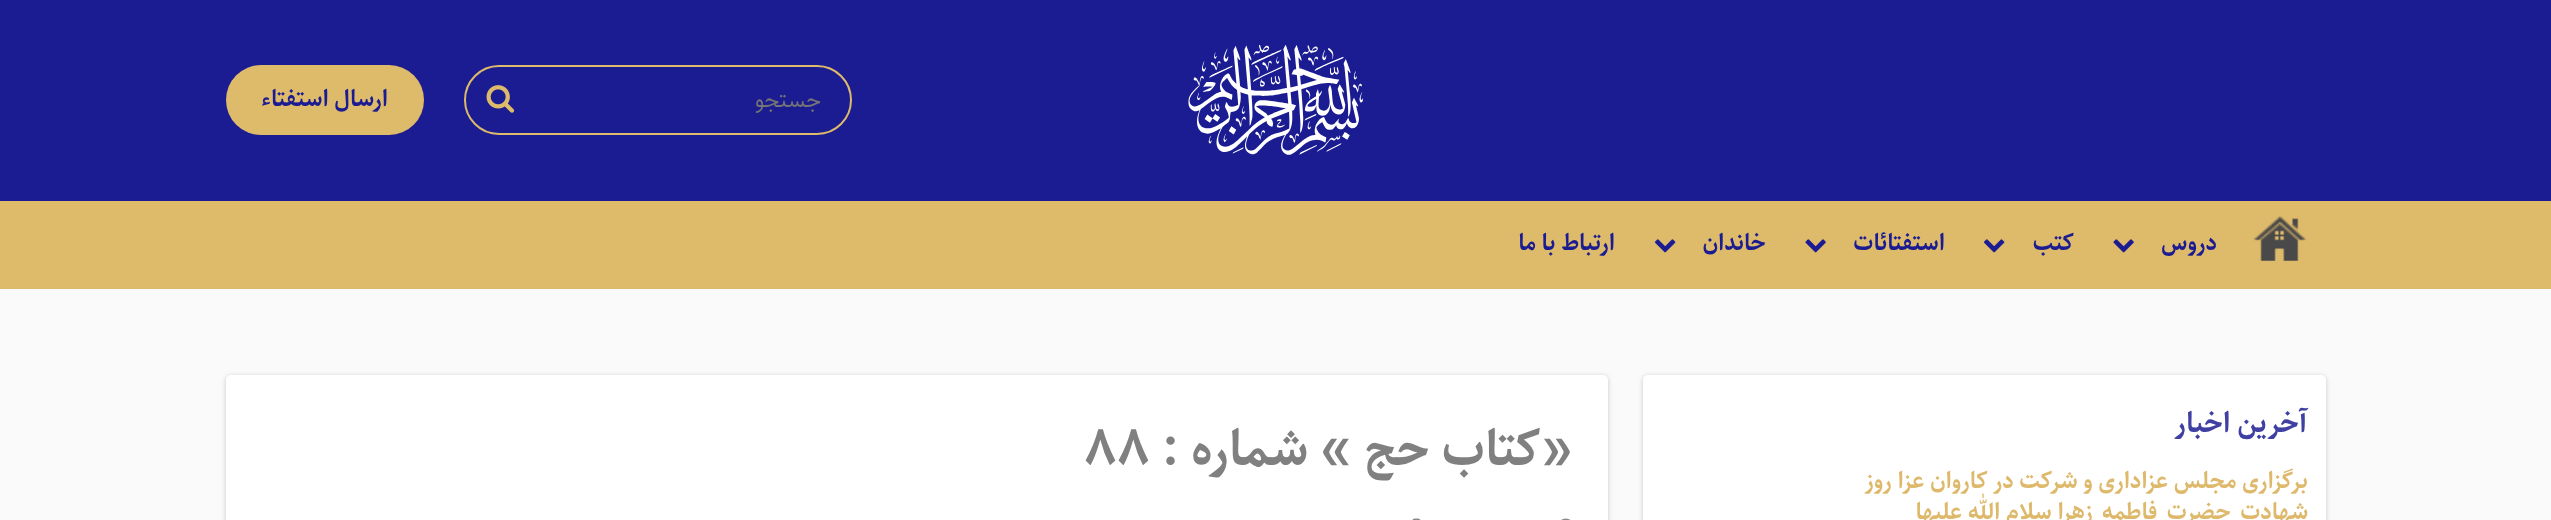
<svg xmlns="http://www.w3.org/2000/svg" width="2551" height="520">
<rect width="100%" height="100%" fill="#fafafa"/>
<rect width="2551" height="201" fill="#1b1c91"/>
<image x="1188" y="45" width="175" height="110" href="media/1.png"/>
<rect x="465" y="66" width="386" height="68" rx="34" fill="none" stroke="#deba6b" stroke-width="2"/>
<text x="821" y="107" style="font-family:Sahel;font-size:22.75px;direction:rtl;fill:#757575">جستجو</text>
<image x="486" y="85" width="29" height="28" href="media/2.png"/>
<rect x="226" y="65" width="198" height="70" rx="35" fill="#deba6b"/>
<text x="388" y="106" style="font-family:Sahel;font-size:22.75px;font-weight:bold;direction:rtl;fill:#1b1c91">ارسال استفتاء</text>
<rect y="201" width="2551" height="88" fill="#deba6b"/>
<image x="2254" y="216" width="53" height="45" href="media/3.png"/>
<text x="2217" y="250" style="font-family:Sahel;font-size:22.75px;font-weight:bold;direction:rtl;fill:#1b1c91">دروس</text>
<image x="2113" y="239" width="21" height="14" href="media/4.png"/>
<text x="2074" y="250" style="font-family:Sahel;font-size:22.75px;font-weight:bold;direction:rtl;fill:#1b1c91">کتب</text>
<image x="1983" y="239" width="22" height="14" href="media/5.png"/>
<text x="1945" y="250" style="font-family:Sahel;font-size:22.75px;font-weight:bold;direction:rtl;fill:#1b1c91">استفتائات</text>
<image x="1805" y="239" width="21" height="14" href="media/4.png"/>
<text x="1766" y="250" style="font-family:Sahel;font-size:22.75px;font-weight:bold;direction:rtl;fill:#1b1c91">خاندان</text>
<image x="1654" y="239" width="22" height="14" href="media/5.png"/>
<text x="1615" y="250" style="font-family:Sahel;font-size:22.75px;font-weight:bold;direction:rtl;fill:#1b1c91">ارتباط با ما</text>
<rect x="1643" y="376" width="683" height="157" rx="5" fill="#00000033" filter="blur(2.5px)"/>
<rect x="1643" y="375" width="683" height="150" rx="5" fill="#fff"/>
<text x="2308" y="432" style="font-family:Sahel;font-size:28px;font-weight:bold;direction:rtl;fill:#3f40a2">آخرین اخبار</text>
<text x="2308" y="488" style="font-family:Sahel;font-size:22.75px;font-weight:bold;direction:rtl;fill:#deb96b">برگزاری مجلس عزاداری و شرکت در کاروان عزا روز</text>
<text x="2308" y="519" style="font-family:Sahel;font-size:22.75px;font-weight:bold;direction:rtl;fill:#deb96b">شهادت_حضرت_فاطمه_زهرا سلام الله علیها</text>
<rect x="226" y="376" width="1382" height="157" rx="5" fill="#00000033" filter="blur(2.5px)"/>
<rect x="226" y="375" width="1382" height="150" rx="5" fill="#fff"/>
<text x="1573" y="465" style="font-family:Sahel;font-size:49px;font-weight:bold;direction:rtl;fill:#808080">«کتاب حج » شماره :</text>
<text x="1084" y="465" style="font-family:Sahel;font-size:49px;font-weight:bold;fill:#808080">۸۸</text>
<image x="1561" y="518" width="10" height="2" href="media/6.png"/>
<image x="1412" y="518" width="9" height="2" href="media/7.png"/>
</svg>
